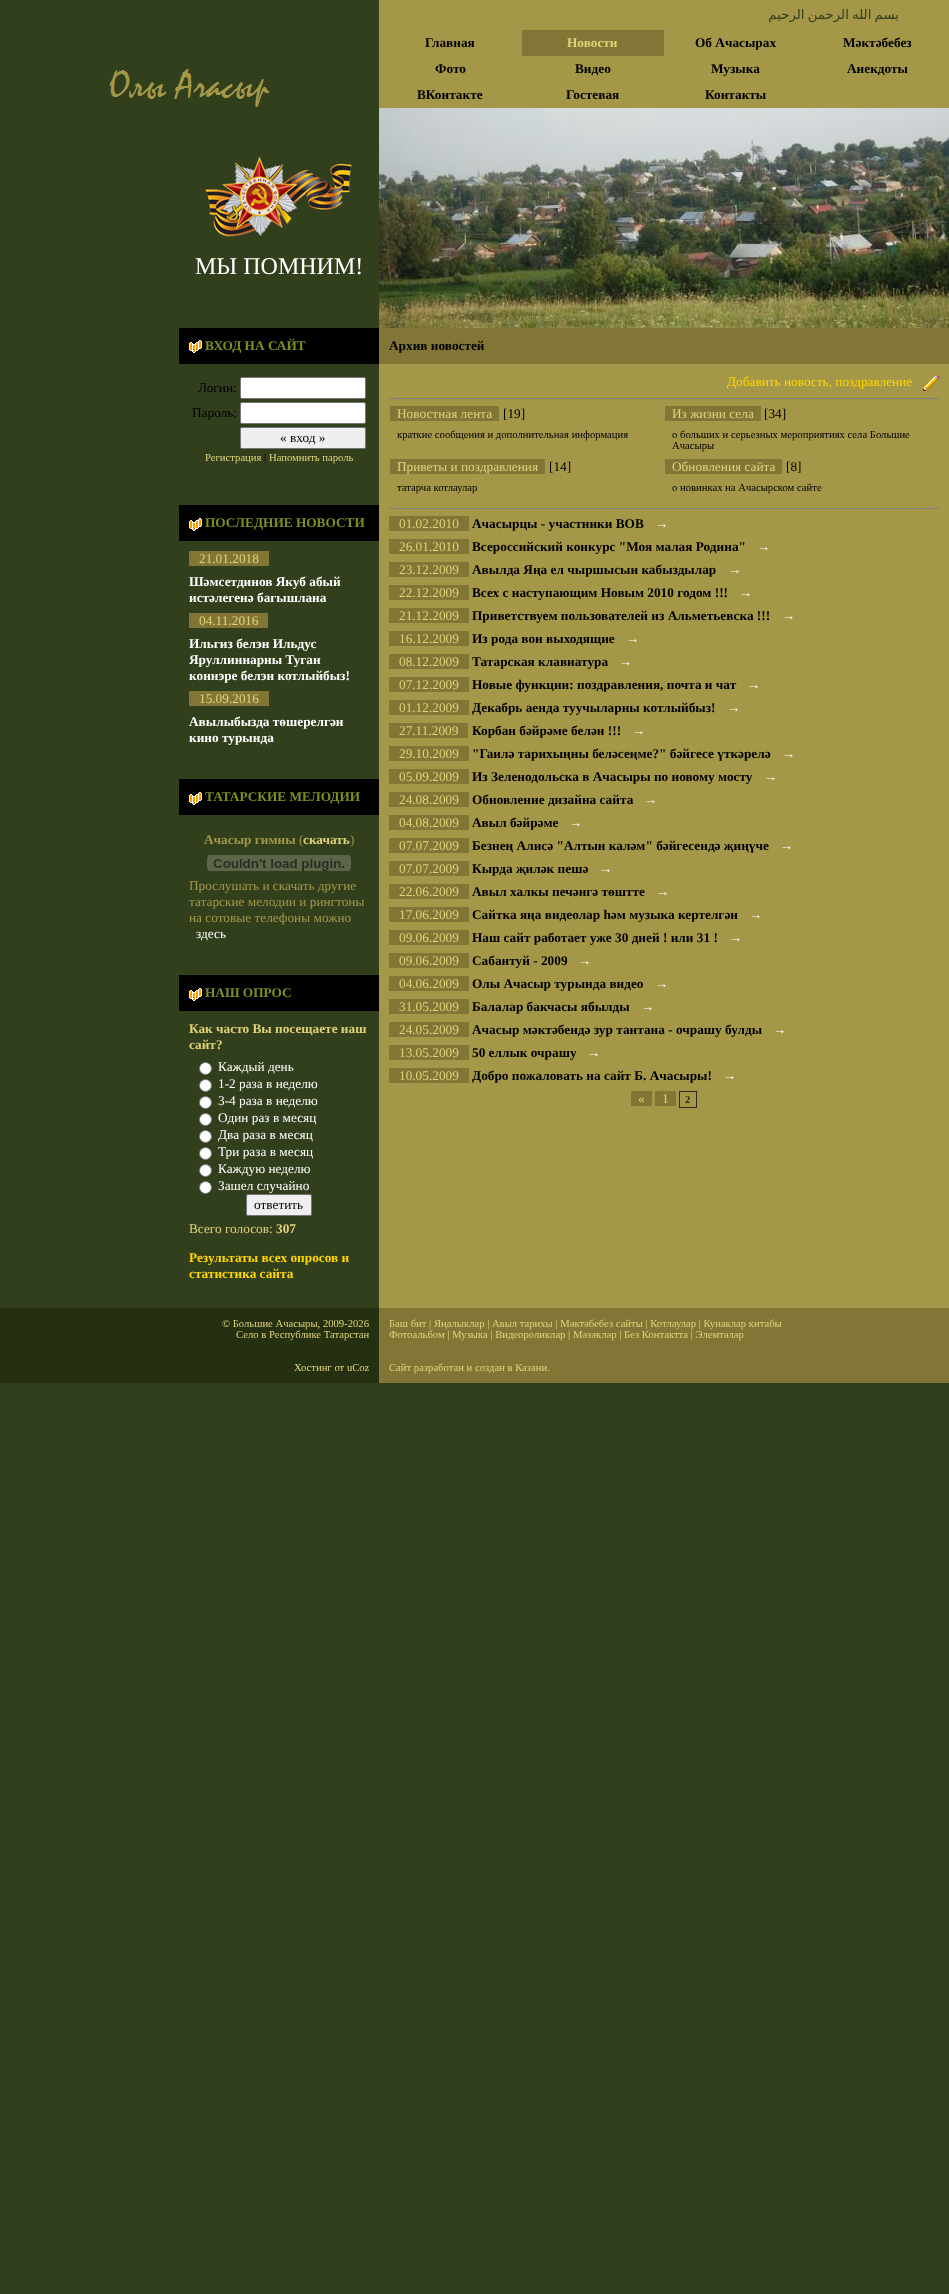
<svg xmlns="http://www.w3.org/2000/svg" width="949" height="2294">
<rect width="100%" height="100%" fill="#323f1c"/>
<image x="109" y="69" width="161" height="38" href="media/1.png"/>
<rect x="379" width="570" height="108" fill="#a49748"/>
<text x="899" y="19" word-spacing="-1" style="font-family:DejaVu Sans;font-size:13.3px;direction:rtl;fill:#323f1c">بسم الله الرحمن الرحيم</text>
<text x="425" y="47" style="font-family:Liberation Serif;font-size:13.3px;font-weight:bold;fill:#000">Главная</text>
<rect x="522" y="30" width="142" height="26" fill="#817635"/>
<text x="567" y="47" style="font-family:Liberation Serif;font-size:13.3px;font-weight:bold;fill:#e1d279">Новости</text>
<text x="695" y="47" style="font-family:Liberation Serif;font-size:13.3px;font-weight:bold;fill:#000">Об Ачасырах</text>
<text x="843" y="47" style="font-family:Liberation Serif;font-size:13.3px;font-weight:bold;fill:#000">Мәктәбебез</text>
<text x="435" y="73" style="font-family:Liberation Serif;font-size:13.3px;font-weight:bold;fill:#000">Фото</text>
<text x="575" y="73" style="font-family:Liberation Serif;font-size:13.3px;font-weight:bold;fill:#000">Видео</text>
<text x="711" y="73" style="font-family:Liberation Serif;font-size:13.3px;font-weight:bold;fill:#000">Музыка</text>
<text x="847" y="73" style="font-family:Liberation Serif;font-size:13.3px;font-weight:bold;fill:#000">Анекдоты</text>
<text x="417" y="99" style="font-family:Liberation Serif;font-size:13.3px;font-weight:bold;fill:#000">ВКонтакте</text>
<text x="566" y="99" style="font-family:Liberation Serif;font-size:13.3px;font-weight:bold;fill:#000">Гостевая</text>
<text x="705" y="99" style="font-family:Liberation Serif;font-size:13.3px;font-weight:bold;fill:#000">Контакты</text>
<image x="204" y="157" width="149" height="80" href="media/2.png"/>
<text x="195" y="274" style="font-family:Liberation Serif;font-size:24px;fill:#fff">МЫ ПОМНИМ!</text>
<image x="379" y="108" width="570" height="220" href="media/3.png"/>
<rect x="179" y="328" width="200" height="36" fill="#000"/>
<image x="189" y="340" width="13" height="13" href="media/4.png"/>
<text x="205" y="350" style="font-family:Liberation Serif;font-size:13.3px;font-weight:bold;fill:#7a9122">ВХОД НА САЙТ</text>
<text x="198" y="392" style="font-family:Liberation Serif;font-size:13.3px;fill:#000">Логин:</text>
<rect x="240.5" y="377.5" width="125" height="21" rx="1.5" fill="#fff" stroke="#767676"/>
<text x="192" y="417" style="font-family:Liberation Serif;font-size:13.3px;fill:#000">Пароль:</text>
<rect x="240.5" y="402.5" width="125" height="21" rx="1.5" fill="#fff" stroke="#767676"/>
<rect x="240.5" y="427.5" width="125" height="21" rx="1.5" fill="#efefef" stroke="#767676"/>
<text x="280" y="442" style="font-family:Liberation Serif;font-size:13.3px;fill:#000">« вход »</text>
<text x="205" y="461" style="font-family:Liberation Serif;font-size:10.65px;fill:#e1d279">Регистрация</text>
<text x="264" y="461" style="font-family:Liberation Serif;font-size:10.65px;fill:#000">|</text>
<text x="269" y="461" style="font-family:Liberation Serif;font-size:10.65px;fill:#e1d279">Напомнить пароль</text>
<rect x="179" y="505" width="200" height="36" fill="#000"/>
<image x="189" y="518" width="13" height="13" href="media/4.png"/>
<text x="205" y="527" style="font-family:Liberation Serif;font-size:13.3px;font-weight:bold;fill:#7a9122">ПОСЛЕДНИЕ НОВОСТИ</text>
<rect x="189" y="551" width="80" height="15" fill="#817635"/>
<text x="199" y="563" style="font-family:Liberation Serif;font-size:13.3px;fill:#e1d279">21.01.2018</text>
<text x="189" y="586" style="font-family:Liberation Serif;font-size:13.3px;font-weight:bold;fill:#fff">Шәмсетдинов Якуб абый</text>
<text x="189" y="602" style="font-family:Liberation Serif;font-size:13.3px;font-weight:bold;fill:#fff">истәлегенә багышлана</text>
<rect x="189" y="613" width="79" height="15" fill="#817635"/>
<text x="199" y="625" style="font-family:Liberation Serif;font-size:13.3px;fill:#e1d279">04.11.2016</text>
<text x="189" y="648" style="font-family:Liberation Serif;font-size:13.3px;font-weight:bold;fill:#fff">Ильгиз белэн Ильдус</text>
<text x="189" y="664" style="font-family:Liberation Serif;font-size:13.3px;font-weight:bold;fill:#fff">Яруллиннарны Туган</text>
<text x="189" y="680" style="font-family:Liberation Serif;font-size:13.3px;font-weight:bold;fill:#fff">коннэре белэн котлыйбыз!</text>
<rect x="189" y="691" width="80" height="15" fill="#817635"/>
<text x="199" y="703" style="font-family:Liberation Serif;font-size:13.3px;fill:#e1d279">15.09.2016</text>
<text x="189" y="726" style="font-family:Liberation Serif;font-size:13.3px;font-weight:bold;fill:#fff">Авылыбызда төшерелгән</text>
<text x="189" y="742" style="font-family:Liberation Serif;font-size:13.3px;font-weight:bold;fill:#fff">кино турында</text>
<rect x="179" y="779" width="200" height="36" fill="#000"/>
<image x="189" y="792" width="13" height="13" href="media/4.png"/>
<text x="205" y="801" style="font-family:Liberation Serif;font-size:13.3px;font-weight:bold;fill:#7a9122">ТАТАРСКИЕ МЕЛОДИИ</text>
<text x="204" y="844" style="font-family:Liberation Serif;font-size:13.3px;font-weight:bold;fill:#a49748">Ачасыр гимны</text>
<text x="299" y="844" style="font-family:Liberation Serif;font-size:13.3px;fill:#a49748">(</text>
<text x="303" y="844" style="font-family:Liberation Serif;font-size:13.3px;font-weight:bold;fill:#e1d279">скачать</text>
<text x="350" y="844" style="font-family:Liberation Serif;font-size:13.3px;fill:#a49748">)</text>
<image x="207" y="855" width="144" height="16" href="media/5.png"/>
<text x="189" y="890" style="font-family:Liberation Serif;font-size:13.3px;fill:#a49748">Прослушать и скачать другие</text>
<text x="189" y="906" style="font-family:Liberation Serif;font-size:13.3px;fill:#a49748">татарские мелодии и рингтоны</text>
<text x="189" y="922" style="font-family:Liberation Serif;font-size:13.3px;fill:#a49748">на сотовые телефоны можно</text>
<text x="196" y="938" style="font-family:Liberation Serif;font-size:13.3px;fill:#fff">здесь</text>
<rect x="179" y="975" width="200" height="36" fill="#000"/>
<image x="189" y="988" width="13" height="13" href="media/4.png"/>
<text x="205" y="997" style="font-family:Liberation Serif;font-size:13.3px;font-weight:bold;fill:#7a9122">НАШ ОПРОС</text>
<text x="189" y="1033" style="font-family:Liberation Serif;font-size:13.3px;font-weight:bold;fill:#e1d279">Как часто Вы посещаете наш</text>
<text x="189" y="1049" style="font-family:Liberation Serif;font-size:13.3px;font-weight:bold;fill:#e1d279">сайт?</text>
<circle cx="205.5" cy="1068.5" r="6" fill="#fff" stroke="#767676"/>
<text x="218" y="1071" style="font-family:Liberation Serif;font-size:13.3px;fill:#fff">Каждый день</text>
<circle cx="205.5" cy="1085.5" r="6" fill="#fff" stroke="#767676"/>
<text x="218" y="1088" style="font-family:Liberation Serif;font-size:13.3px;fill:#fff">1-2 раза в неделю</text>
<circle cx="205.5" cy="1102.5" r="6" fill="#fff" stroke="#767676"/>
<text x="218" y="1105" style="font-family:Liberation Serif;font-size:13.3px;fill:#fff">3-4 раза в неделю</text>
<circle cx="205.5" cy="1119.5" r="6" fill="#fff" stroke="#767676"/>
<text x="218" y="1122" style="font-family:Liberation Serif;font-size:13.3px;fill:#fff">Один раз в месяц</text>
<circle cx="205.5" cy="1136.5" r="6" fill="#fff" stroke="#767676"/>
<text x="218" y="1139" style="font-family:Liberation Serif;font-size:13.3px;fill:#fff">Два раза в месяц</text>
<circle cx="205.5" cy="1153.5" r="6" fill="#fff" stroke="#767676"/>
<text x="218" y="1156" style="font-family:Liberation Serif;font-size:13.3px;fill:#fff">Три раза в месяц</text>
<circle cx="205.5" cy="1170.5" r="6" fill="#fff" stroke="#767676"/>
<text x="218" y="1173" style="font-family:Liberation Serif;font-size:13.3px;fill:#fff">Каждую неделю</text>
<circle cx="205.5" cy="1187.5" r="6" fill="#fff" stroke="#767676"/>
<text x="218" y="1190" style="font-family:Liberation Serif;font-size:13.3px;fill:#fff">Зашел случайно</text>
<rect x="246.5" y="1194.5" width="65" height="21" rx="1.5" fill="#efefef" stroke="#767676"/>
<text x="254" y="1209" style="font-family:Liberation Serif;font-size:13.3px;fill:#000">ответить</text>
<text x="189" y="1233" style="font-family:Liberation Serif;font-size:13.3px;fill:#e1d279">Всего голосов:</text>
<text x="276" y="1233" style="font-family:Liberation Serif;font-size:13.3px;font-weight:bold;fill:#e1d279">307</text>
<text x="189" y="1262" style="font-family:Liberation Serif;font-size:13.3px;font-weight:bold;fill:#ffd700">Результаты всех опросов и</text>
<text x="189" y="1278" style="font-family:Liberation Serif;font-size:13.3px;font-weight:bold;fill:#ffd700">статистика сайта</text>
<rect x="379" y="364" width="570" height="944" fill="#a49748"/>
<rect x="379" y="328" width="570" height="36" fill="#817635"/>
<text x="389" y="350" style="font-family:Liberation Serif;font-size:13.3px;font-weight:bold;fill:#000">Архив новостей</text>
<text x="727" y="386" style="font-family:Liberation Serif;font-size:13.3px;fill:#ffd700">Добавить новость, поздравление</text>
<image x="923" y="375" width="16" height="16" href="media/6.png"/>
<rect x="389" y="398" width="550" height="1" fill="#808080"/>
<rect x="390" y="406" width="109" height="15" fill="#817635"/>
<text x="397" y="418" style="font-family:Liberation Serif;font-size:13.3px;fill:#e1d279">Новостная лента</text>
<text x="503" y="418" style="font-family:Liberation Serif;font-size:13.3px;fill:#000">[19]</text>
<text x="397" y="438" style="font-family:Liberation Serif;font-size:10.65px;fill:#000">краткие сообщения и дополнительная информация</text>
<rect x="665" y="406" width="96" height="15" fill="#817635"/>
<text x="672" y="418" style="font-family:Liberation Serif;font-size:13.3px;fill:#e1d279">Из жизни села</text>
<text x="764" y="418" style="font-family:Liberation Serif;font-size:13.3px;fill:#000">[34]</text>
<text x="672" y="438" style="font-family:Liberation Serif;font-size:10.65px;fill:#000">о больших и серьезных мероприятиях села Большие</text>
<text x="672" y="449" style="font-family:Liberation Serif;font-size:10.65px;fill:#000">Ачасыры</text>
<rect x="390" y="459" width="155" height="15" fill="#817635"/>
<text x="397" y="471" style="font-family:Liberation Serif;font-size:13.3px;fill:#e1d279">Приветы и поздравления</text>
<text x="549" y="471" style="font-family:Liberation Serif;font-size:13.3px;fill:#000">[14]</text>
<text x="397" y="491" style="font-family:Liberation Serif;font-size:10.65px;fill:#000">татарча котлаулар</text>
<rect x="665" y="459" width="117" height="15" fill="#817635"/>
<text x="672" y="471" style="font-family:Liberation Serif;font-size:13.3px;fill:#e1d279">Обновления сайта</text>
<text x="786" y="471" style="font-family:Liberation Serif;font-size:13.3px;fill:#000">[8]</text>
<text x="672" y="491" style="font-family:Liberation Serif;font-size:10.65px;fill:#000">о новинках на Ачасырском сайте</text>
<rect x="389" y="508" width="550" height="1" fill="#808080"/>
<rect x="389" y="516" width="80" height="15" fill="#817635"/>
<text x="399" y="528" style="font-family:Liberation Serif;font-size:13.3px;fill:#e1d279">01.02.2010</text>
<text x="472" y="528" style="font-family:Liberation Serif;font-size:13.3px;font-weight:bold;fill:#000">Ачасырцы - участники ВОВ</text>
<text x="655" y="528" style="font-family:Liberation Serif;font-size:13.3px;fill:#fff">→</text>
<rect x="389" y="539" width="80" height="15" fill="#817635"/>
<text x="399" y="551" style="font-family:Liberation Serif;font-size:13.3px;fill:#e1d279">26.01.2010</text>
<text x="472" y="551" style="font-family:Liberation Serif;font-size:13.3px;font-weight:bold;fill:#000">Всероссийский конкурс "Моя малая Родина"</text>
<text x="757" y="551" style="font-family:Liberation Serif;font-size:13.3px;fill:#fff">→</text>
<rect x="389" y="562" width="80" height="15" fill="#817635"/>
<text x="399" y="574" style="font-family:Liberation Serif;font-size:13.3px;fill:#e1d279">23.12.2009</text>
<text x="472" y="574" style="font-family:Liberation Serif;font-size:13.3px;font-weight:bold;fill:#000">Авылда Яңа ел чыршысын кабыздылар</text>
<text x="728" y="574" style="font-family:Liberation Serif;font-size:13.3px;fill:#fff">→</text>
<rect x="389" y="585" width="80" height="15" fill="#817635"/>
<text x="399" y="597" style="font-family:Liberation Serif;font-size:13.3px;fill:#e1d279">22.12.2009</text>
<text x="472" y="597" style="font-family:Liberation Serif;font-size:13.3px;font-weight:bold;fill:#000">Всех с наступающим Новым 2010 годом !!!</text>
<text x="739" y="597" style="font-family:Liberation Serif;font-size:13.3px;fill:#fff">→</text>
<rect x="389" y="608" width="80" height="15" fill="#817635"/>
<text x="399" y="620" style="font-family:Liberation Serif;font-size:13.3px;fill:#e1d279">21.12.2009</text>
<text x="472" y="620" style="font-family:Liberation Serif;font-size:13.3px;font-weight:bold;fill:#000">Приветствуем пользователей из Альметьевска !!!</text>
<text x="782" y="620" style="font-family:Liberation Serif;font-size:13.3px;fill:#fff">→</text>
<rect x="389" y="631" width="80" height="15" fill="#817635"/>
<text x="399" y="643" style="font-family:Liberation Serif;font-size:13.3px;fill:#e1d279">16.12.2009</text>
<text x="472" y="643" style="font-family:Liberation Serif;font-size:13.3px;font-weight:bold;fill:#000">Из рода вон выходящие</text>
<text x="626" y="643" style="font-family:Liberation Serif;font-size:13.3px;fill:#fff">→</text>
<rect x="389" y="654" width="80" height="15" fill="#817635"/>
<text x="399" y="666" style="font-family:Liberation Serif;font-size:13.3px;fill:#e1d279">08.12.2009</text>
<text x="472" y="666" style="font-family:Liberation Serif;font-size:13.3px;font-weight:bold;fill:#000">Татарская клавиатура</text>
<text x="619" y="666" style="font-family:Liberation Serif;font-size:13.3px;fill:#fff">→</text>
<rect x="389" y="677" width="80" height="15" fill="#817635"/>
<text x="399" y="689" style="font-family:Liberation Serif;font-size:13.3px;fill:#e1d279">07.12.2009</text>
<text x="472" y="689" style="font-family:Liberation Serif;font-size:13.3px;font-weight:bold;fill:#000">Новые функции: поздравления, почта и чат</text>
<text x="747" y="689" style="font-family:Liberation Serif;font-size:13.3px;fill:#fff">→</text>
<rect x="389" y="700" width="80" height="15" fill="#817635"/>
<text x="399" y="712" style="font-family:Liberation Serif;font-size:13.3px;fill:#e1d279">01.12.2009</text>
<text x="472" y="712" style="font-family:Liberation Serif;font-size:13.3px;font-weight:bold;fill:#000">Декабрь аенда туучыларны котлыйбыз!</text>
<text x="727" y="712" style="font-family:Liberation Serif;font-size:13.3px;fill:#fff">→</text>
<rect x="389" y="723" width="79" height="15" fill="#817635"/>
<text x="399" y="735" style="font-family:Liberation Serif;font-size:13.3px;fill:#e1d279">27.11.2009</text>
<text x="472" y="735" style="font-family:Liberation Serif;font-size:13.3px;font-weight:bold;fill:#000">Корбан бәйрәме белән !!!</text>
<text x="632" y="735" style="font-family:Liberation Serif;font-size:13.3px;fill:#fff">→</text>
<rect x="389" y="746" width="80" height="15" fill="#817635"/>
<text x="399" y="758" style="font-family:Liberation Serif;font-size:13.3px;fill:#e1d279">29.10.2009</text>
<text x="472" y="758" style="font-family:Liberation Serif;font-size:13.3px;font-weight:bold;fill:#000">"Гаилә тарихыңны беләсеңме?" бәйгесе үткәрелә</text>
<text x="782" y="758" style="font-family:Liberation Serif;font-size:13.3px;fill:#fff">→</text>
<rect x="389" y="769" width="80" height="15" fill="#817635"/>
<text x="399" y="781" style="font-family:Liberation Serif;font-size:13.3px;fill:#e1d279">05.09.2009</text>
<text x="472" y="781" style="font-family:Liberation Serif;font-size:13.3px;font-weight:bold;fill:#000">Из Зеленодольска в Ачасыры по новому мосту</text>
<text x="764" y="781" style="font-family:Liberation Serif;font-size:13.3px;fill:#fff">→</text>
<rect x="389" y="792" width="80" height="15" fill="#817635"/>
<text x="399" y="804" style="font-family:Liberation Serif;font-size:13.3px;fill:#e1d279">24.08.2009</text>
<text x="472" y="804" style="font-family:Liberation Serif;font-size:13.3px;font-weight:bold;fill:#000">Обновление дизайна сайта</text>
<text x="644" y="804" style="font-family:Liberation Serif;font-size:13.3px;fill:#fff">→</text>
<rect x="389" y="815" width="80" height="15" fill="#817635"/>
<text x="399" y="827" style="font-family:Liberation Serif;font-size:13.3px;fill:#e1d279">04.08.2009</text>
<text x="472" y="827" style="font-family:Liberation Serif;font-size:13.3px;font-weight:bold;fill:#000">Авыл бәйрәме</text>
<text x="569" y="827" style="font-family:Liberation Serif;font-size:13.3px;fill:#fff">→</text>
<rect x="389" y="838" width="80" height="15" fill="#817635"/>
<text x="399" y="850" style="font-family:Liberation Serif;font-size:13.3px;fill:#e1d279">07.07.2009</text>
<text x="472" y="850" style="font-family:Liberation Serif;font-size:13.3px;font-weight:bold;fill:#000">Безнең Алисә "Алтын каләм" бәйгесендә җиңүче</text>
<text x="780" y="850" style="font-family:Liberation Serif;font-size:13.3px;fill:#fff">→</text>
<rect x="389" y="861" width="80" height="15" fill="#817635"/>
<text x="399" y="873" style="font-family:Liberation Serif;font-size:13.3px;fill:#e1d279">07.07.2009</text>
<text x="472" y="873" style="font-family:Liberation Serif;font-size:13.3px;font-weight:bold;fill:#000">Кырда җиләк пешә</text>
<text x="599" y="873" style="font-family:Liberation Serif;font-size:13.3px;fill:#fff">→</text>
<rect x="389" y="884" width="80" height="15" fill="#817635"/>
<text x="399" y="896" style="font-family:Liberation Serif;font-size:13.3px;fill:#e1d279">22.06.2009</text>
<text x="472" y="896" style="font-family:Liberation Serif;font-size:13.3px;font-weight:bold;fill:#000">Авыл халкы печәнгә төштте</text>
<text x="656" y="896" style="font-family:Liberation Serif;font-size:13.3px;fill:#fff">→</text>
<rect x="389" y="907" width="80" height="15" fill="#817635"/>
<text x="399" y="919" style="font-family:Liberation Serif;font-size:13.3px;fill:#e1d279">17.06.2009</text>
<text x="472" y="919" style="font-family:Liberation Serif;font-size:13.3px;font-weight:bold;fill:#000">Сайтка яңа видеолар hәм музыка кертелгән</text>
<text x="749" y="919" style="font-family:Liberation Serif;font-size:13.3px;fill:#fff">→</text>
<rect x="389" y="930" width="80" height="15" fill="#817635"/>
<text x="399" y="942" style="font-family:Liberation Serif;font-size:13.3px;fill:#e1d279">09.06.2009</text>
<text x="472" y="942" style="font-family:Liberation Serif;font-size:13.3px;font-weight:bold;fill:#000">Наш сайт работает уже 30 дней ! или 31 !</text>
<text x="729" y="942" style="font-family:Liberation Serif;font-size:13.3px;fill:#fff">→</text>
<rect x="389" y="953" width="80" height="15" fill="#817635"/>
<text x="399" y="965" style="font-family:Liberation Serif;font-size:13.3px;fill:#e1d279">09.06.2009</text>
<text x="472" y="965" style="font-family:Liberation Serif;font-size:13.3px;font-weight:bold;fill:#000">Сабантуй - 2009</text>
<text x="578" y="965" style="font-family:Liberation Serif;font-size:13.3px;fill:#fff">→</text>
<rect x="389" y="976" width="80" height="15" fill="#817635"/>
<text x="399" y="988" style="font-family:Liberation Serif;font-size:13.3px;fill:#e1d279">04.06.2009</text>
<text x="472" y="988" style="font-family:Liberation Serif;font-size:13.3px;font-weight:bold;fill:#000">Олы Ачасыр турында видео</text>
<text x="655" y="988" style="font-family:Liberation Serif;font-size:13.3px;fill:#fff">→</text>
<rect x="389" y="999" width="80" height="15" fill="#817635"/>
<text x="399" y="1011" style="font-family:Liberation Serif;font-size:13.3px;fill:#e1d279">31.05.2009</text>
<text x="472" y="1011" style="font-family:Liberation Serif;font-size:13.3px;font-weight:bold;fill:#000">Балалар бакчасы ябылды</text>
<text x="641" y="1011" style="font-family:Liberation Serif;font-size:13.3px;fill:#fff">→</text>
<rect x="389" y="1022" width="80" height="15" fill="#817635"/>
<text x="399" y="1034" style="font-family:Liberation Serif;font-size:13.3px;fill:#e1d279">24.05.2009</text>
<text x="472" y="1034" style="font-family:Liberation Serif;font-size:13.3px;font-weight:bold;fill:#000">Ачасыр мәктәбендә зур тантана - очрашу булды</text>
<text x="773" y="1034" style="font-family:Liberation Serif;font-size:13.3px;fill:#fff">→</text>
<rect x="389" y="1045" width="80" height="15" fill="#817635"/>
<text x="399" y="1057" style="font-family:Liberation Serif;font-size:13.3px;fill:#e1d279">13.05.2009</text>
<text x="472" y="1057" style="font-family:Liberation Serif;font-size:13.3px;font-weight:bold;fill:#000">50 еллык очрашу</text>
<text x="587" y="1057" style="font-family:Liberation Serif;font-size:13.3px;fill:#fff">→</text>
<rect x="389" y="1068" width="80" height="15" fill="#817635"/>
<text x="399" y="1080" style="font-family:Liberation Serif;font-size:13.3px;fill:#e1d279">10.05.2009</text>
<text x="472" y="1080" style="font-family:Liberation Serif;font-size:13.3px;font-weight:bold;fill:#000">Добро пожаловать на сайт Б. Ачасыры!</text>
<text x="723" y="1080" style="font-family:Liberation Serif;font-size:13.3px;fill:#fff">→</text>
<rect x="631" y="1091" width="21" height="15" fill="#817635"/>
<text x="638" y="1103" style="font-family:Liberation Serif;font-size:13.3px;fill:#e1d279">«</text>
<rect x="655" y="1091" width="21" height="15" fill="#817635"/>
<text x="662" y="1103" style="font-family:Liberation Serif;font-size:13.3px;fill:#e1d279">1</text>
<rect x="679.5" y="1091.5" width="17" height="16" fill="none" stroke="#243010"/>
<text x="685" y="1103" style="font-family:Liberation Serif;font-size:10.65px;font-weight:bold;fill:#243010">2</text>
<rect y="1308" width="379" height="75" fill="#243010"/>
<text x="222" y="1327" style="font-family:Liberation Serif;font-size:10.65px;fill:#e1d279">© Большие Ачасыры, 2009-2026</text>
<text x="236" y="1338" style="font-family:Liberation Serif;font-size:10.65px;fill:#e1d279">Село в Республике Татарстан</text>
<text x="294" y="1371" style="font-family:Liberation Serif;font-size:10.65px;fill:#e1d279">Хостинг от uCoz</text>
<rect x="379" y="1308" width="570" height="75" fill="#817635"/>
<text x="389" y="1327" style="font-family:Liberation Serif;font-size:10.65px;fill:#e1d279">Баш бит | Яңалыклар | Авыл тарихы | Мәктәбебез сайты | Котлаулар | Кунаклар китабы</text>
<text x="389" y="1338" style="font-family:Liberation Serif;font-size:10.65px;fill:#e1d279">Фотоальбом | Музыка | Видеороликлар | Мәзәкләр | Без Контактта | Элемтәләр</text>
<text x="389" y="1371" style="font-family:Liberation Serif;font-size:10.65px;fill:#e1d279">Сайт разработан и создан в Казани.</text>
</svg>
